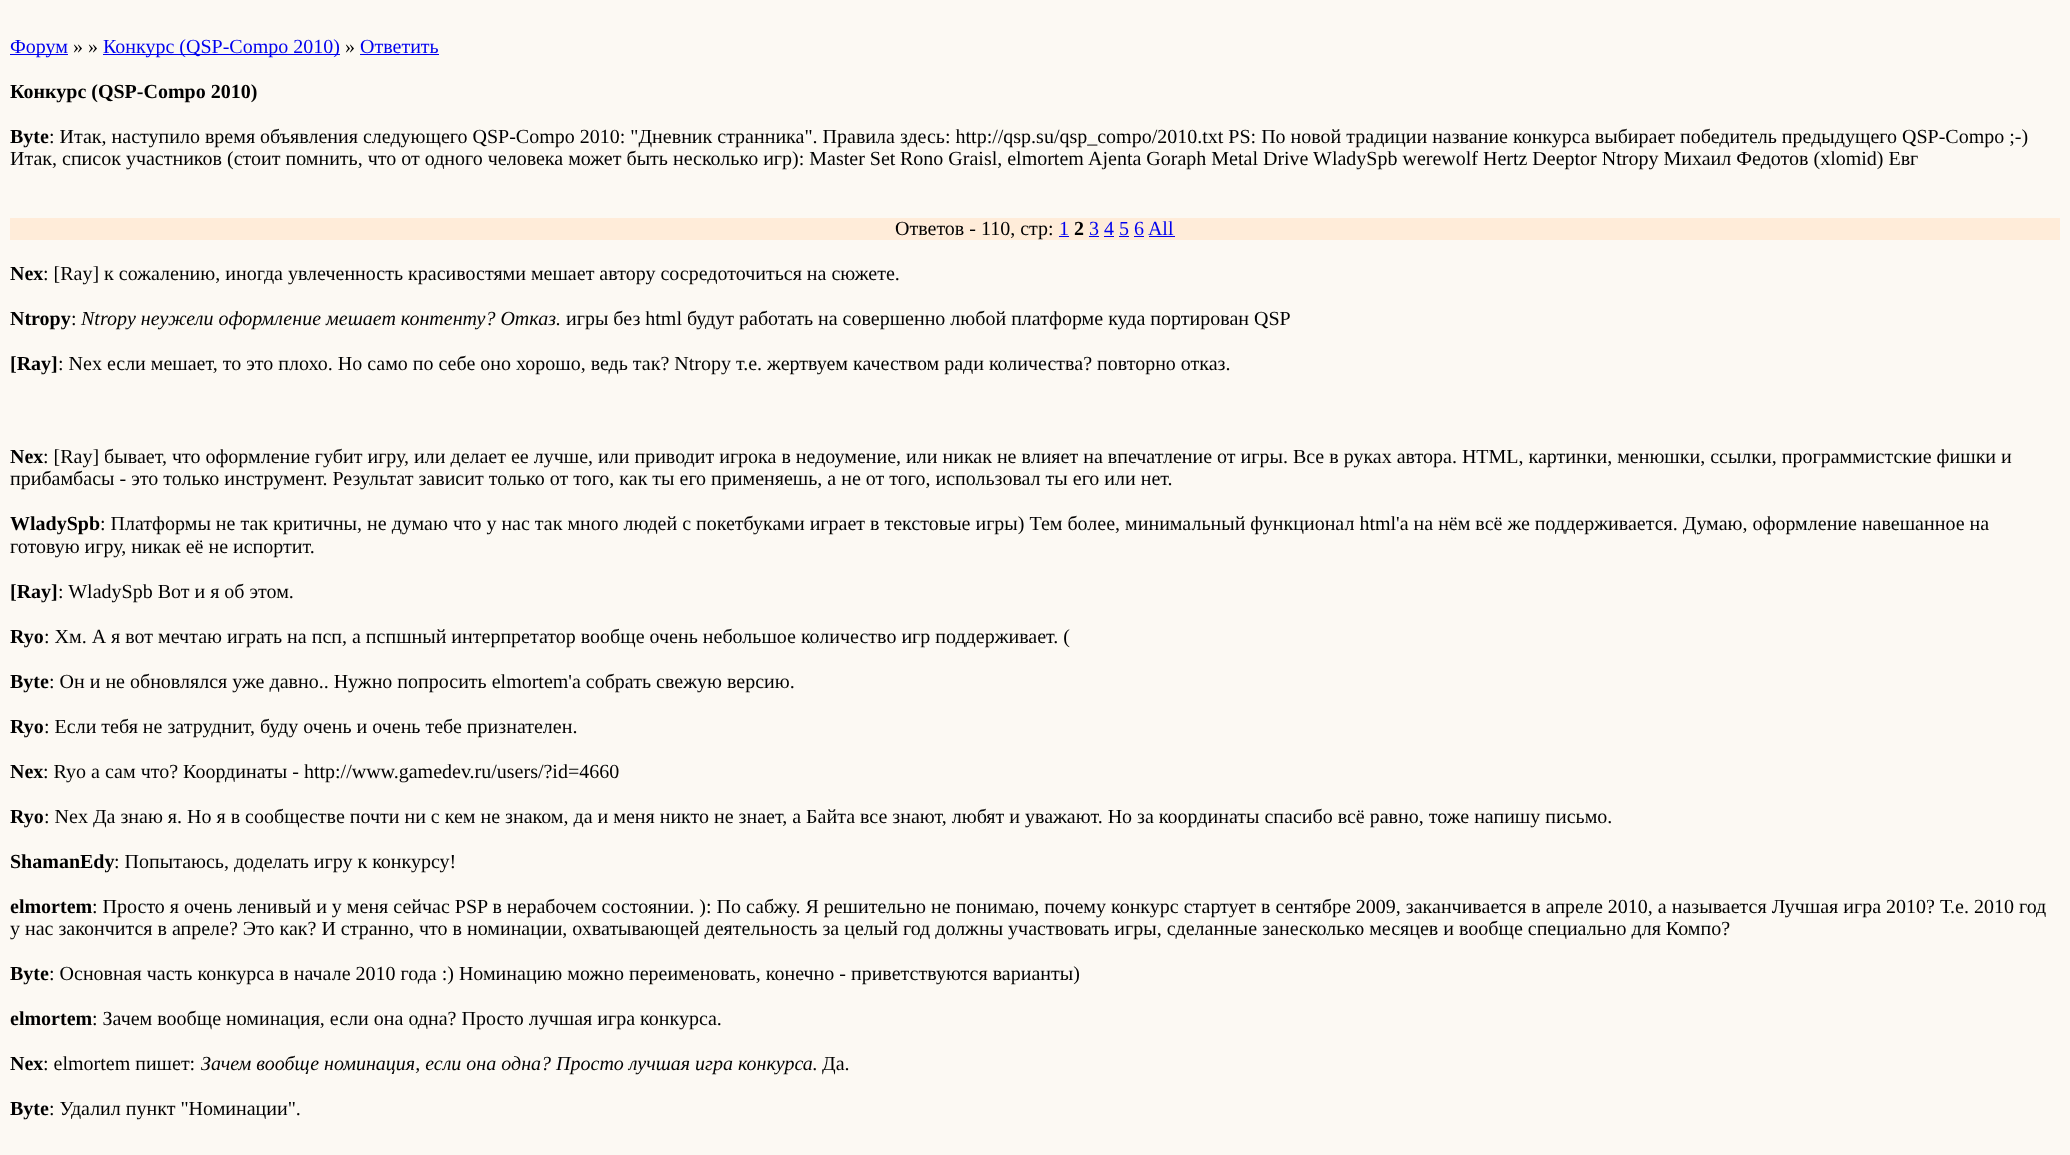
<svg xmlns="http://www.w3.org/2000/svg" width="2070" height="1155">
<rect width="100%" height="100%" fill="#fcf9f3"/>
<rect x="10" y="54" width="58" height="1" fill="#00e"/>
<text x="10" y="53" style="font-family:Liberation Serif;font-size:20px;fill:#00e">Форум</text>
<text x="73" y="53" style="font-family:Liberation Serif;font-size:20px;fill:#000">» »</text>
<rect x="103" y="54" width="237" height="1" fill="#00e"/>
<text x="103" y="53" style="font-family:Liberation Serif;font-size:20px;fill:#00e">Конкурс (QSP-Compo 2010)</text>
<text x="345" y="53" style="font-family:Liberation Serif;font-size:20px;fill:#000">»</text>
<text x="360" y="53" style="font-family:Liberation Serif;font-size:20px;fill:#00e">Ответить</text>
<rect x="360" y="54" width="79" height="1" fill="#00e"/>
<text x="10" y="98" style="font-family:Liberation Serif;font-size:20px;font-weight:bold;fill:#000">Конкурс (QSP-Compo 2010)</text>
<text x="10" y="143" style="font-family:Liberation Serif;font-size:20px;font-weight:bold;fill:#000">Byte</text>
<text x="49" y="143" style="font-family:Liberation Serif;font-size:20px;fill:#000">: Итак, наступило время объявления следующего QSP-Compo 2010: "Дневник странника". Правила здесь: http://qsp.su/qsp_compo/2010.txt PS: По новой традиции название конкурса выбирает победитель предыдущего QSP-Compo ;-)</text>
<text x="10" y="165" style="font-family:Liberation Serif;font-size:20px;fill:#000">Итак, список участников (стоит помнить, что от одного человека может быть несколько игр): Master Set</text>
<text x="900" y="165" style="font-family:Liberation Serif;font-size:20px;fill:#000">Rono Graisl, elmortem</text>
<text x="1088" y="165" style="font-family:Liberation Serif;font-size:20px;fill:#000">Ajenta Goraph Metal Drive</text>
<text x="1313" y="165" style="font-family:Liberation Serif;font-size:20px;fill:#000">WladySpb werewolf Hertz Deeptor Ntropy Михаил Федотов (xlomid) Евг</text>
<rect x="10" y="218" width="2050" height="22" fill="#ffecd9"/>
<text x="895" y="235" style="font-family:Liberation Serif;font-size:20px;fill:#000">Ответов - 110, стр:</text>
<text x="1059" y="235" style="font-family:Liberation Serif;font-size:20px;fill:#00e">1</text>
<rect x="1059" y="236" width="10" height="1" fill="#00e"/>
<text x="1074" y="235" style="font-family:Liberation Serif;font-size:20px;font-weight:bold;fill:#000">2</text>
<text x="1089" y="235" style="font-family:Liberation Serif;font-size:20px;fill:#00e">3 4 5 6 All</text>
<rect x="1089" y="236" width="10" height="1" fill="#00e"/>
<rect x="1104" y="236" width="10" height="1" fill="#00e"/>
<rect x="1119" y="236" width="10" height="1" fill="#00e"/>
<rect x="1134" y="236" width="10" height="1" fill="#00e"/>
<rect x="1149" y="236" width="26" height="1" fill="#00e"/>
<text x="10" y="280" style="font-family:Liberation Serif;font-size:20px;font-weight:bold;fill:#000">Nex</text>
<text x="43" y="280" style="font-family:Liberation Serif;font-size:20px;fill:#000">: [Ray] к сожалению, иногда увлеченность красивостями мешает автору сосредоточиться на сюжете.</text>
<text x="10" y="325" style="font-family:Liberation Serif;font-size:20px;font-weight:bold;fill:#000">Ntropy</text>
<text x="71" y="325" style="font-family:Liberation Serif;font-size:20px;fill:#000">:</text>
<text x="81" y="325" style="font-family:Liberation Serif;font-size:20px;font-style:italic;fill:#000">Ntropy неужели оформление мешает контенту? Отказ.</text>
<text x="566" y="325" style="font-family:Liberation Serif;font-size:20px;fill:#000">игры без html будут работать на совершенно любой платформе куда портирован QSP</text>
<text x="10" y="370" style="font-family:Liberation Serif;font-size:20px;font-weight:bold;fill:#000">[Ray]</text>
<text x="58" y="370" style="font-family:Liberation Serif;font-size:20px;fill:#000">: Nex если мешает, то это плохо. Но само по себе оно хорошо, ведь так? Ntropy т.е. жертвуем качеством ради количества? повторно отказ.</text>
<text x="10" y="463" style="font-family:Liberation Serif;font-size:20px;font-weight:bold;fill:#000">Nex</text>
<text x="43" y="463" style="font-family:Liberation Serif;font-size:20px;fill:#000">: [Ray] бывает, что оформление губит игру, или делает ее лучше, или приводит игрока в недоумение, или никак не влияет на впечатление от игры. Все в руках автора. HTML, картинки, менюшки, ссылки, программистские фишки и</text>
<text x="10" y="485" style="font-family:Liberation Serif;font-size:20px;fill:#000">прибамбасы - это только инструмент. Результат зависит только от того, как ты его применяешь, а не от того, использовал ты его или нет.</text>
<text x="10" y="530" style="font-family:Liberation Serif;font-size:20px;font-weight:bold;fill:#000">WladySpb</text>
<text x="100" y="530" style="font-family:Liberation Serif;font-size:20px;fill:#000">: Платформы не так критичны, не думаю что у нас так много людей с покетбуками играет в текстовые игры) Тем более, минимальный функционал html'а на нём всё же поддерживается. Думаю, оформление навешанное на</text>
<text x="10" y="553" style="font-family:Liberation Serif;font-size:20px;fill:#000">готовую игру, никак её не испортит.</text>
<text x="10" y="598" style="font-family:Liberation Serif;font-size:20px;font-weight:bold;fill:#000">[Ray]</text>
<text x="58" y="598" style="font-family:Liberation Serif;font-size:20px;fill:#000">: WladySpb Вот и я об этом.</text>
<text x="10" y="643" style="font-family:Liberation Serif;font-size:20px;font-weight:bold;fill:#000">Ryo</text>
<text x="44" y="643" style="font-family:Liberation Serif;font-size:20px;fill:#000">: Хм. А я вот мечтаю играть на псп, а пспшный интерпретатор вообще очень небольшое количество игр поддерживает. (</text>
<text x="10" y="688" style="font-family:Liberation Serif;font-size:20px;font-weight:bold;fill:#000">Byte</text>
<text x="49" y="688" style="font-family:Liberation Serif;font-size:20px;fill:#000">: Он и не обновлялся уже давно.. Нужно попросить elmortem'а собрать свежую версию.</text>
<text x="10" y="733" style="font-family:Liberation Serif;font-size:20px;font-weight:bold;fill:#000">Ryo</text>
<text x="44" y="733" style="font-family:Liberation Serif;font-size:20px;fill:#000">: Если тебя не затруднит, буду очень и очень тебе признателен.</text>
<text x="10" y="778" style="font-family:Liberation Serif;font-size:20px;font-weight:bold;fill:#000">Nex</text>
<text x="43" y="778" style="font-family:Liberation Serif;font-size:20px;fill:#000">: Ryo а сам что? Координаты - http://www.gamedev.ru/users/?id=4660</text>
<text x="10" y="823" style="font-family:Liberation Serif;font-size:20px;font-weight:bold;fill:#000">Ryo</text>
<text x="44" y="823" style="font-family:Liberation Serif;font-size:20px;fill:#000">: Nex Да знаю я. Но я в сообществе почти ни с кем не знаком, да и меня никто не знает, а Байта все знают, любят и уважают. Но за координаты спасибо всё равно, тоже напишу письмо.</text>
<text x="10" y="868" style="font-family:Liberation Serif;font-size:20px;font-weight:bold;fill:#000">ShamanEdy</text>
<text x="114" y="868" style="font-family:Liberation Serif;font-size:20px;fill:#000">: Попытаюсь, доделать игру к конкурсу!</text>
<text x="10" y="913" style="font-family:Liberation Serif;font-size:20px;font-weight:bold;fill:#000">elmortem</text>
<text x="92" y="913" style="font-family:Liberation Serif;font-size:20px;fill:#000">: Просто я очень ленивый и у меня сейчас PSP в нерабочем состоянии. ): По сабжу. Я решительно не понимаю, почему конкурс стартует в сентябре 2009, заканчивается в апреле 2010, а называется Лучшая игра 2010? Т.е. 2010 год</text>
<text x="10" y="935" style="font-family:Liberation Serif;font-size:20px;fill:#000">у нас закончится в апреле? Это как? И странно, что в номинации, охватывающей деятельность за целый год должны участвовать игры, сделанные занесколько месяцев и вообще специально для Компо?</text>
<text x="10" y="980" style="font-family:Liberation Serif;font-size:20px;font-weight:bold;fill:#000">Byte</text>
<text x="49" y="980" style="font-family:Liberation Serif;font-size:20px;fill:#000">: Основная часть конкурса в начале 2010 года :) Номинацию можно переименовать, конечно - приветствуются варианты)</text>
<text x="10" y="1025" style="font-family:Liberation Serif;font-size:20px;font-weight:bold;fill:#000">elmortem</text>
<text x="92" y="1025" style="font-family:Liberation Serif;font-size:20px;fill:#000">: Зачем вообще номинация, если она одна? Просто лучшая игра конкурса.</text>
<text x="10" y="1070" style="font-family:Liberation Serif;font-size:20px;font-weight:bold;fill:#000">Nex</text>
<text x="43" y="1070" style="font-family:Liberation Serif;font-size:20px;fill:#000">: elmortem пишет:</text>
<text x="201" y="1070" style="font-family:Liberation Serif;font-size:20px;font-style:italic;fill:#000">Зачем вообще номинация, если она одна? Просто лучшая игра конкурса.</text>
<text x="822" y="1070" style="font-family:Liberation Serif;font-size:20px;fill:#000">Да.</text>
<text x="10" y="1115" style="font-family:Liberation Serif;font-size:20px;font-weight:bold;fill:#000">Byte</text>
<text x="49" y="1115" style="font-family:Liberation Serif;font-size:20px;fill:#000">: Удалил пункт "Номинации".</text>
</svg>
